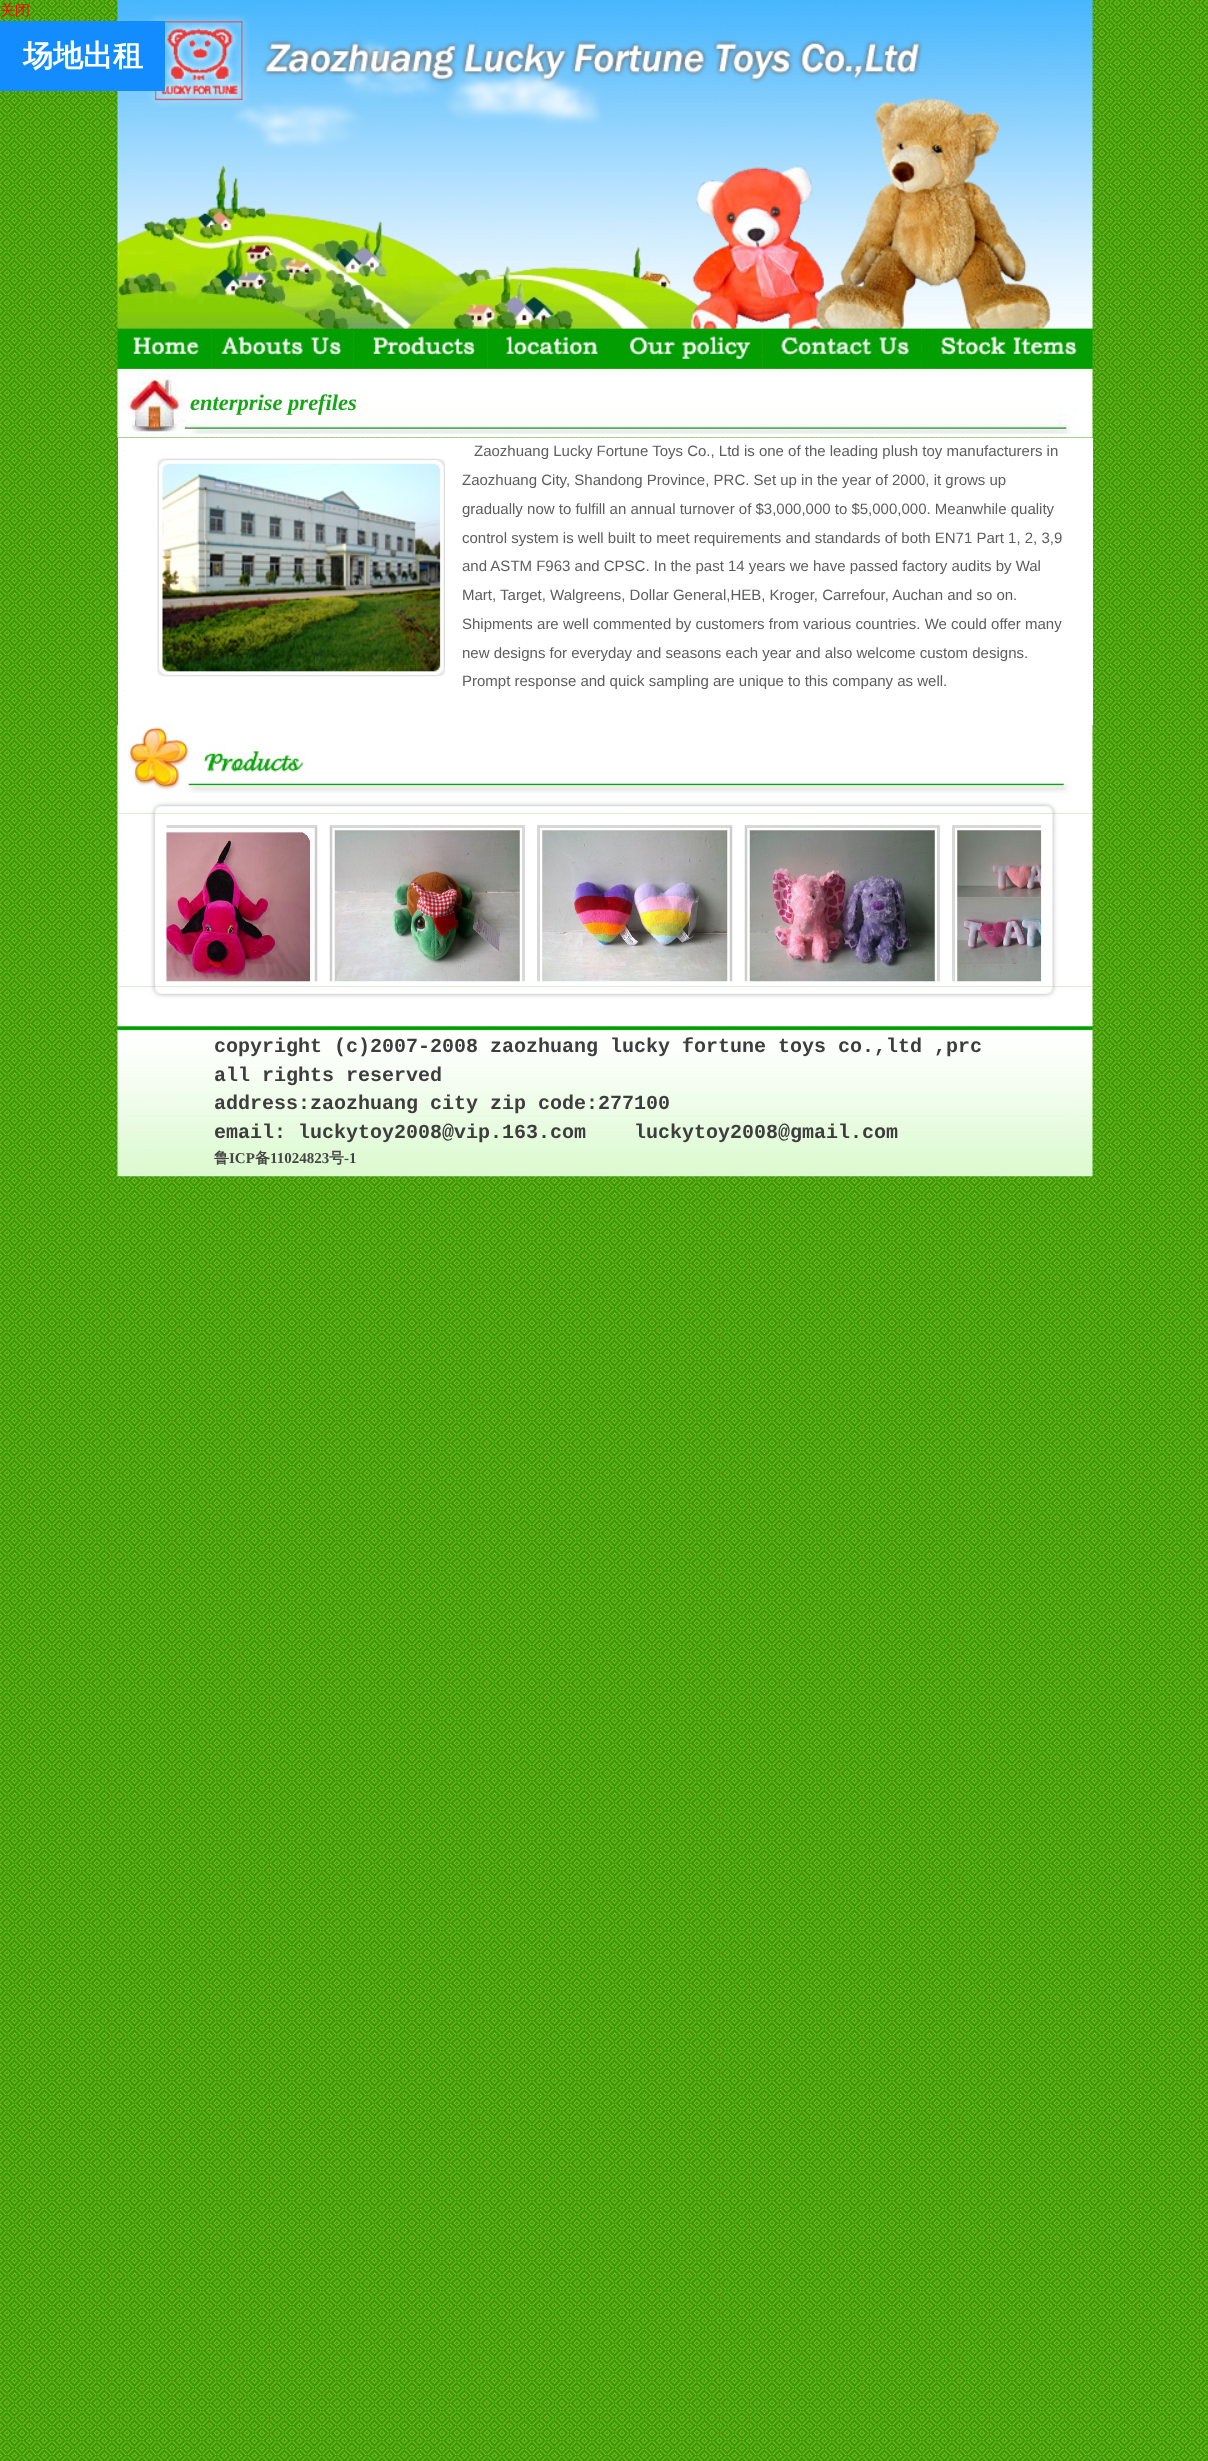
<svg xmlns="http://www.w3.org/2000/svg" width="1208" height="2461">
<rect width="100%" height="100%" fill="#fff"/>
<image x="0" y="0" width="1208" height="2461" href="media/1.png"/>
<text x="0" y="15" style="font-family:WenQuanYi Zen Hei;font-size:15px;font-weight:500;fill:#f00">关闭</text>
<image x="117" y="0" width="976" height="329" href="media/2.png"/>
<rect y="21" width="165" height="70" fill="#128cff"/>
<text x="23" y="66" style="font-family:WenQuanYi Zen Hei;font-size:30px;font-weight:bold;fill:#fff">场地出租</text>
<image x="117" y="368" width="976" height="70" href="media/10.png"/>
<image x="117" y="328" width="95" height="41" href="media/3.png"/>
<image x="211" y="328" width="143" height="41" href="media/4.png"/>
<image x="353" y="328" width="135" height="41" href="media/5.png"/>
<image x="487" y="328" width="123" height="41" href="media/6.png"/>
<image x="610" y="328" width="153" height="41" href="media/7.png"/>
<image x="762" y="328" width="160" height="41" href="media/8.png"/>
<image x="921" y="328" width="172" height="41" href="media/9.png"/>
<text x="190" y="410" style="font-family:Liberation Serif;font-size:22.5px;font-weight:bold;font-style:italic;fill:#15a716">enterprise prefiles</text>
<rect x="118" y="438" width="975" height="287" fill="#fff"/>
<image x="157" y="458" width="288" height="219" href="media/11.png"/>
<text x="474" y="456" style="font-family:Liberation Sans;font-size:15px;fill:#5d5d5d">Zaozhuang Lucky Fortune Toys Co., Ltd is one of the leading plush toy manufacturers in</text>
<text x="462" y="485" style="font-family:Liberation Sans;font-size:15px;fill:#5d5d5d">Zaozhuang City, Shandong Province, PRC. Set up in the year of 2000, it grows up</text>
<text x="462" y="514" style="font-family:Liberation Sans;font-size:15px;fill:#5d5d5d">gradually now to fulfill an annual turnover of $3,000,000 to $5,000,000. Meanwhile quality</text>
<text x="462" y="543" style="font-family:Liberation Sans;font-size:15px;fill:#5d5d5d">control system is well built to meet requirements and standards of both EN71 Part 1, 2, 3,9</text>
<text x="462" y="571" style="font-family:Liberation Sans;font-size:15px;fill:#5d5d5d">and ASTM F963 and CPSC. In the past 14 years we have passed factory audits by Wal</text>
<text x="462" y="600" style="font-family:Liberation Sans;font-size:15px;fill:#5d5d5d">Mart, Target, Walgreens, Dollar General,HEB, Kroger, Carrefour, Auchan and so on.</text>
<text x="462" y="629" style="font-family:Liberation Sans;font-size:15px;fill:#5d5d5d">Shipments are well commented by customers from various countries. We could offer many</text>
<text x="462" y="658" style="font-family:Liberation Sans;font-size:15px;fill:#5d5d5d">new designs for everyday and seasons each year and also welcome custom designs.</text>
<text x="462" y="686" style="font-family:Liberation Sans;font-size:15px;fill:#5d5d5d">Prompt response and quick sampling are unique to this company as well.</text>
<image x="117" y="813" width="976" height="174" href="media/13.png"/>
<image x="117" y="725" width="976" height="89" href="media/12.png"/>
<image x="166" y="825" width="876" height="157" href="media/14.png"/>
<image x="117" y="1026" width="976" height="151" href="media/16.png"/>
<image x="117" y="986" width="976" height="41" href="media/15.png"/>
<text x="214" y="1052" style="font-family:Liberation Mono;font-size:20px;font-weight:bold;fill:#3d3d3d">copyright (c)2007-2008 zaozhuang lucky fortune toys co.,ltd ,prc</text>
<text x="214" y="1081" style="font-family:Liberation Mono;font-size:20px;font-weight:bold;fill:#3d3d3d">all rights reserved</text>
<text x="214" y="1109" style="font-family:Liberation Mono;font-size:20px;font-weight:bold;fill:#3d3d3d">address:zaozhuang city zip code:277100</text>
<text x="214" y="1138" style="font-family:Liberation Mono;font-size:20px;font-weight:bold;fill:#3d3d3d" xml:space="preserve">email: luckytoy2008@vip.163.com    luckytoy2008@gmail.com</text>
<text x="214" y="1163" style="font-family:WenQuanYi Zen Hei;font-size:15px;font-weight:bold;fill:#444">鲁</text>
<text x="229" y="1163" style="font-family:Liberation Serif;font-size:15px;font-weight:bold;fill:#444">ICP</text>
<text x="255" y="1163" style="font-family:WenQuanYi Zen Hei;font-size:15px;font-weight:bold;fill:#444">备</text>
<text x="270" y="1163" style="font-family:Liberation Serif;font-size:15px;font-weight:bold;fill:#444">11024823</text>
<text x="329" y="1163" style="font-family:WenQuanYi Zen Hei;font-size:15px;font-weight:bold;fill:#444">号</text>
<text x="344" y="1163" style="font-family:Liberation Serif;font-size:15px;font-weight:bold;fill:#444">-1</text>
</svg>
